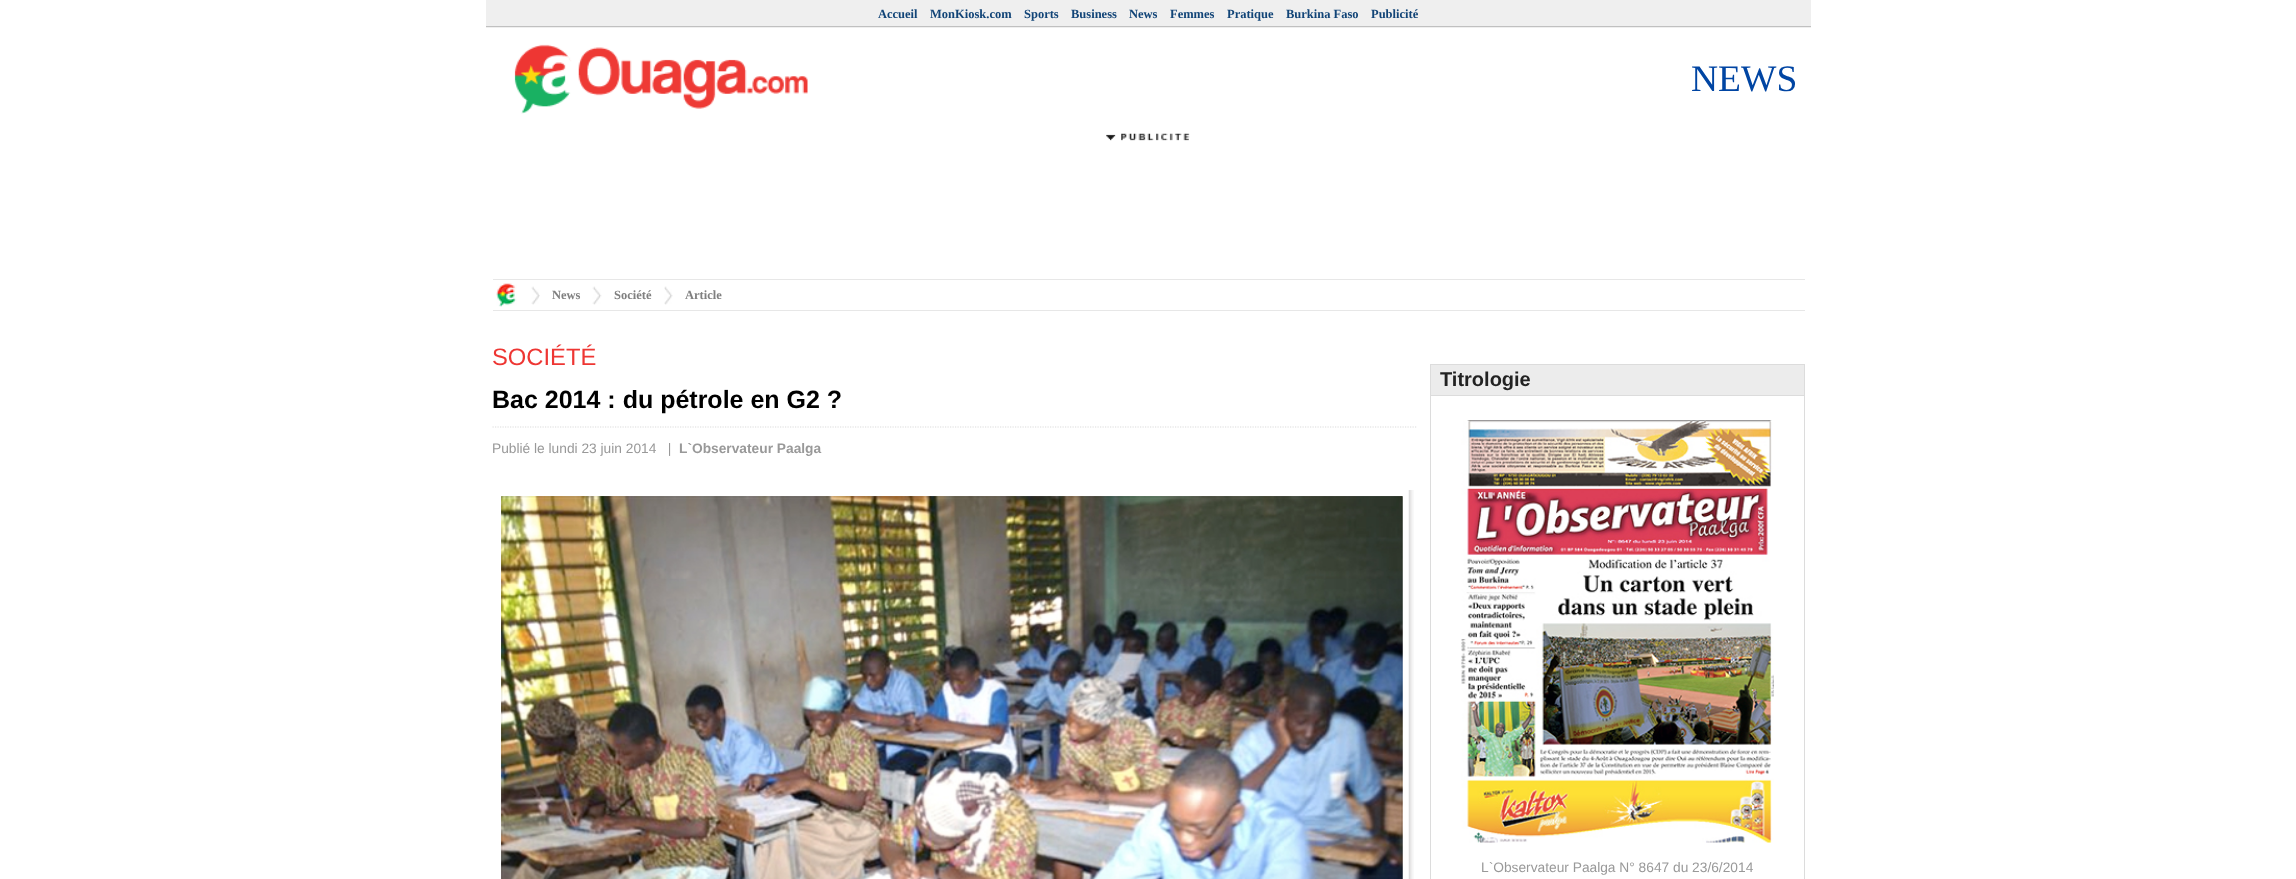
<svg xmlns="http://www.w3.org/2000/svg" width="2296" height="879">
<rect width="100%" height="100%" fill="#fff"/>
<rect x="486" width="1325" height="28" fill="#efefef"/>
<rect x="486" y="26" width="1325" height="1" fill="#c0c0c0"/>
<text x="878" y="18" style="font-family:Liberation Serif;font-size:12.5px;font-weight:bold;fill:#147">Accueil</text>
<text x="930" y="18" style="font-family:Liberation Serif;font-size:12.5px;font-weight:bold;fill:#147">MonKiosk.com</text>
<text x="1024" y="18" style="font-family:Liberation Serif;font-size:12.5px;font-weight:bold;fill:#147">Sports</text>
<text x="1071" y="18" style="font-family:Liberation Serif;font-size:12.5px;font-weight:bold;fill:#147">Business</text>
<text x="1129" y="18" style="font-family:Liberation Serif;font-size:12.5px;font-weight:bold;fill:#147">News</text>
<text x="1170" y="18" style="font-family:Liberation Serif;font-size:12.5px;font-weight:bold;fill:#147">Femmes</text>
<text x="1227" y="18" style="font-family:Liberation Serif;font-size:12.5px;font-weight:bold;fill:#147">Pratique</text>
<text x="1286" y="18" style="font-family:Liberation Serif;font-size:12.5px;font-weight:bold;fill:#147">Burkina Faso</text>
<text x="1371" y="18" style="font-family:Liberation Serif;font-size:12.5px;font-weight:bold;fill:#147">Publicité</text>
<image x="514" y="44" width="294" height="70" href="media/1.png"/>
<text x="1691" y="91" style="font-family:Liberation Serif;font-size:37.5px;fill:#0045a3">NEWS</text>
<image x="1106" y="133" width="84" height="8" href="media/2.png"/>
<rect x="493" y="279" width="1312" height="1" fill="#e7e7e7"/>
<rect x="493" y="310" width="1312" height="1" fill="#e7e7e7"/>
<image x="496" y="283" width="21" height="24" href="media/3.png"/>
<image x="531" y="286" width="9" height="19" href="media/4.png"/>
<text x="552" y="299" style="font-family:Liberation Serif;font-size:12.5px;font-weight:bold;fill:#808080">News</text>
<image x="592" y="286" width="10" height="19" href="media/5.png"/>
<text x="614" y="299" style="font-family:Liberation Serif;font-size:12.5px;font-weight:bold;fill:#808080">Société</text>
<image x="664" y="286" width="9" height="19" href="media/6.png"/>
<text x="685" y="299" style="font-family:Liberation Serif;font-size:12.5px;font-weight:bold;fill:#808080">Article</text>
<text x="492" y="365" style="font-family:Liberation Sans;font-size:23.75px;fill:#ee3633">SOCIÉTÉ</text>
<text x="492" y="408" style="font-family:Liberation Sans;font-size:25px;font-weight:bold;fill:#000">Bac 2014 : du pétrole en G2 ?</text>
<path d="M492.5 427h925" fill="none" stroke="#dcdcdc" stroke-width="1.2" stroke-dasharray="1.25 1.25"/>
<text x="492" y="453" style="font-family:Liberation Sans;font-size:13.75px;fill:#999" xml:space="preserve">Publié le lundi 23 juin 2014   |</text>
<text x="679" y="453" style="font-family:Liberation Sans;font-size:13.75px;font-weight:bold;fill:#999">L`Observateur Paalga</text>
<image x="501" y="490" width="913" height="389" href="media/7.png"/>
<image x="501" y="496" width="902" height="383" href="media/8.png"/>
<rect x="1430.5" y="364.5" width="374" height="31" fill="#ececec" stroke="#dcdcdc"/>
<text x="1440" y="386" style="font-family:Liberation Sans;font-size:20px;font-weight:bold;fill:#222">Titrologie</text>
<rect x="1804" y="396" width="1" height="483" fill="#dcdcdc"/>
<rect x="1430" y="396" width="1" height="483" fill="#dcdcdc"/>
<image x="1461" y="420" width="313" height="423" href="media/9.png"/>
<text x="1481" y="872" style="font-family:Liberation Sans;font-size:13.75px;fill:#999">L`Observateur Paalga N° 8647 du 23/6/2014</text>
</svg>
